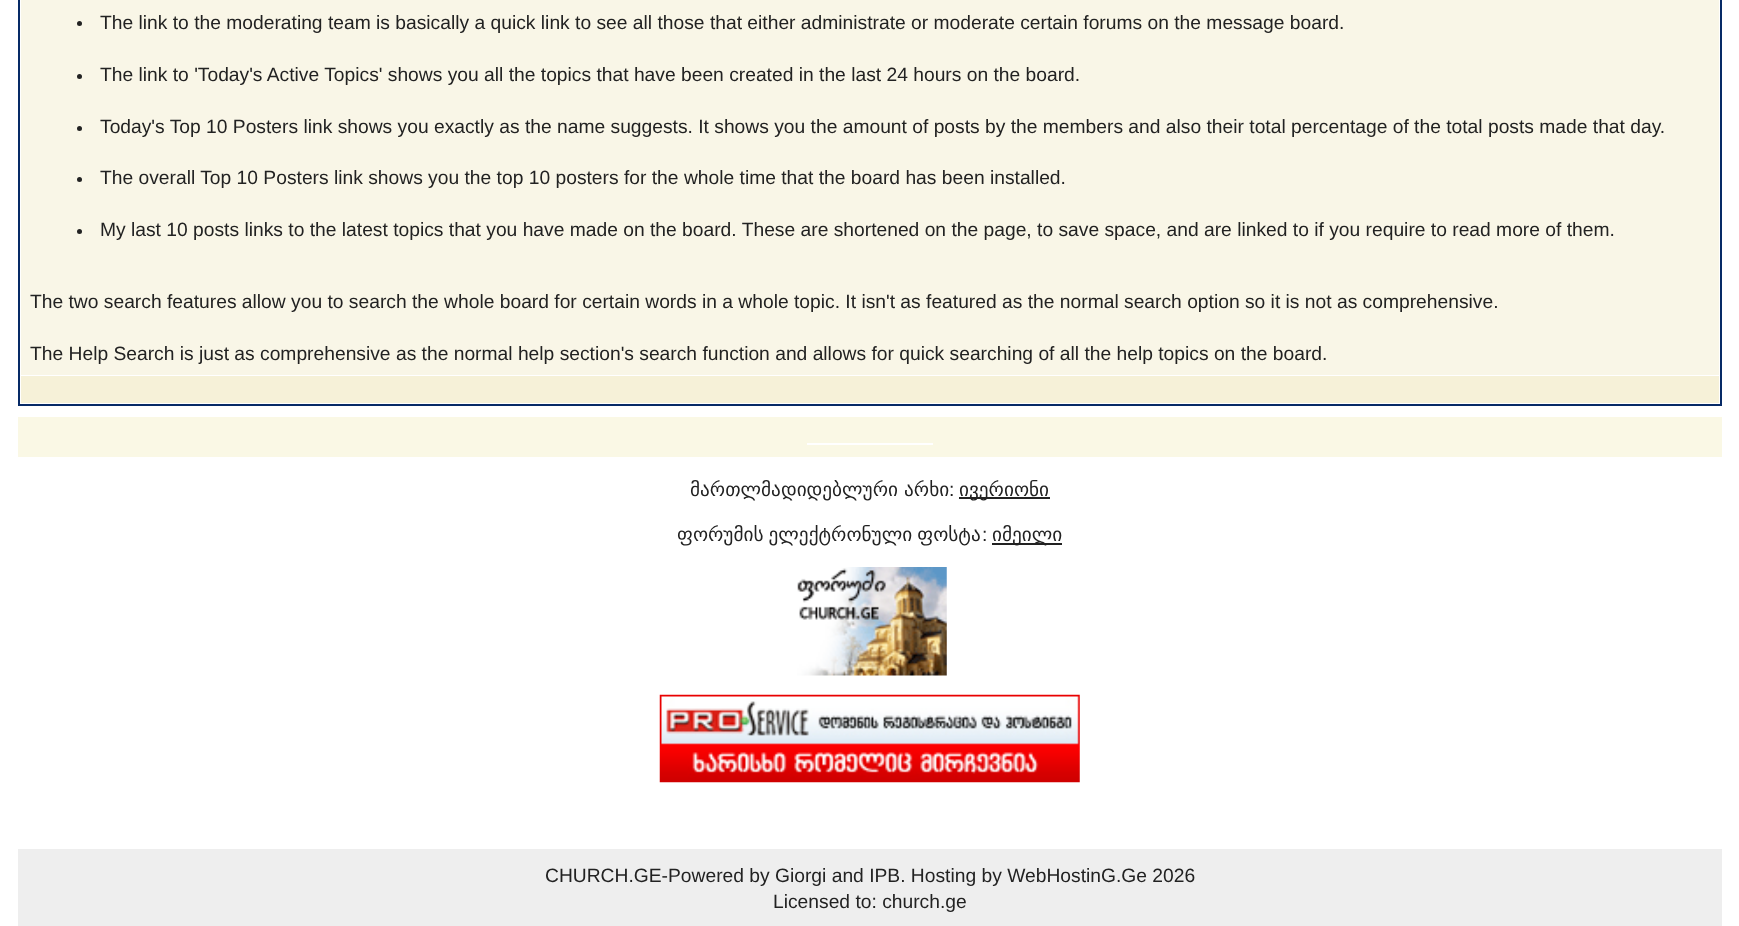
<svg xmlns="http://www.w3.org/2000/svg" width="1739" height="926">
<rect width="100%" height="100%" fill="#fff"/>
<rect x="19" y="-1" width="1702" height="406" fill="none" stroke="#072a66" stroke-width="2"/>
<rect x="21" width="1698" height="375" fill="#f9f6e7"/>
<circle cx="79.5" cy="23.5" r="2.5" fill="#222"/>
<text x="100" y="29" style="font-family:Liberation Sans;font-size:19.25px;fill:#222">The link to the moderating team is basically a quick link to see all those that either administrate or moderate certain forums on the message board.</text>
<circle cx="79.5" cy="76.5" r="2.5" fill="#222"/>
<text x="100" y="81" style="font-family:Liberation Sans;font-size:19.25px;fill:#222">The link to 'Today's Active Topics' shows you all the topics that have been created in the last 24 hours on the board.</text>
<circle cx="79.5" cy="128.5" r="2.5" fill="#222"/>
<text x="100" y="133" style="font-family:Liberation Sans;font-size:19.25px;fill:#222">Today's Top 10 Posters link shows you exactly as the name suggests. It shows you the amount of posts by the members and also their total percentage of the total posts made that day.</text>
<circle cx="79.5" cy="179.5" r="2.5" fill="#222"/>
<text x="100" y="184" style="font-family:Liberation Sans;font-size:19.25px;fill:#222">The overall Top 10 Posters link shows you the top 10 posters for the whole time that the board has been installed.</text>
<circle cx="79.5" cy="231.5" r="2.5" fill="#222"/>
<text x="100" y="236" style="font-family:Liberation Sans;font-size:19.25px;fill:#222">My last 10 posts links to the latest topics that you have made on the board. These are shortened on the page, to save space, and are linked to if you require to read more of them.</text>
<text x="30" y="308" style="font-family:Liberation Sans;font-size:19.25px;fill:#222">The two search features allow you to search the whole board for certain words in a whole topic. It isn't as featured as the normal search option so it is not as comprehensive.</text>
<text x="30" y="360" style="font-family:Liberation Sans;font-size:19.25px;fill:#222">The Help Search is just as comprehensive as the normal help section's search function and allows for quick searching of all the help topics on the board.</text>
<rect x="21" y="376" width="1698" height="27" fill="#f6f1d8"/>
<rect x="18" y="417" width="1704" height="40" fill="#faf8e5"/>
<rect x="807" y="443" width="126" height="2" fill="#fff"/>
<text x="690" y="496" style="font-family:DejaVu Sans;font-size:19.25px;fill:#222">მართლმადიდებლური არხი</text>
<text x="949" y="496" style="font-family:Liberation Sans;font-size:19.25px;fill:#222">:</text>
<rect x="959" y="497" width="91" height="2" fill="#222"/>
<text x="959" y="496" style="font-family:DejaVu Sans;font-size:19.25px;fill:#222">ივერიონი</text>
<text x="677" y="541" word-spacing="-1" style="font-family:DejaVu Sans;font-size:19.25px;fill:#222">ფორუმის ელექტრონული ფოსტა</text>
<text x="982" y="541" style="font-family:Liberation Sans;font-size:19.25px;fill:#222">:</text>
<rect x="992" y="543" width="70" height="2" fill="#222"/>
<text x="992" y="541" style="font-family:DejaVu Sans;font-size:19.25px;fill:#222">იმეილი</text>
<image x="797" y="567" width="150" height="109" href="media/1.png"/>
<image x="659" y="694" width="421" height="89" href="media/2.png"/>
<rect x="18" y="849" width="1704" height="77" fill="#eee"/>
<text x="545" y="882" style="font-family:Liberation Sans;font-size:19.25px;fill:#222">CHURCH.GE-Powered by Giorgi and IPB. Hosting by WebHostinG.Ge 2026</text>
<text x="773" y="908" style="font-family:Liberation Sans;font-size:19.25px;fill:#222">Licensed to: church.ge</text>
</svg>
